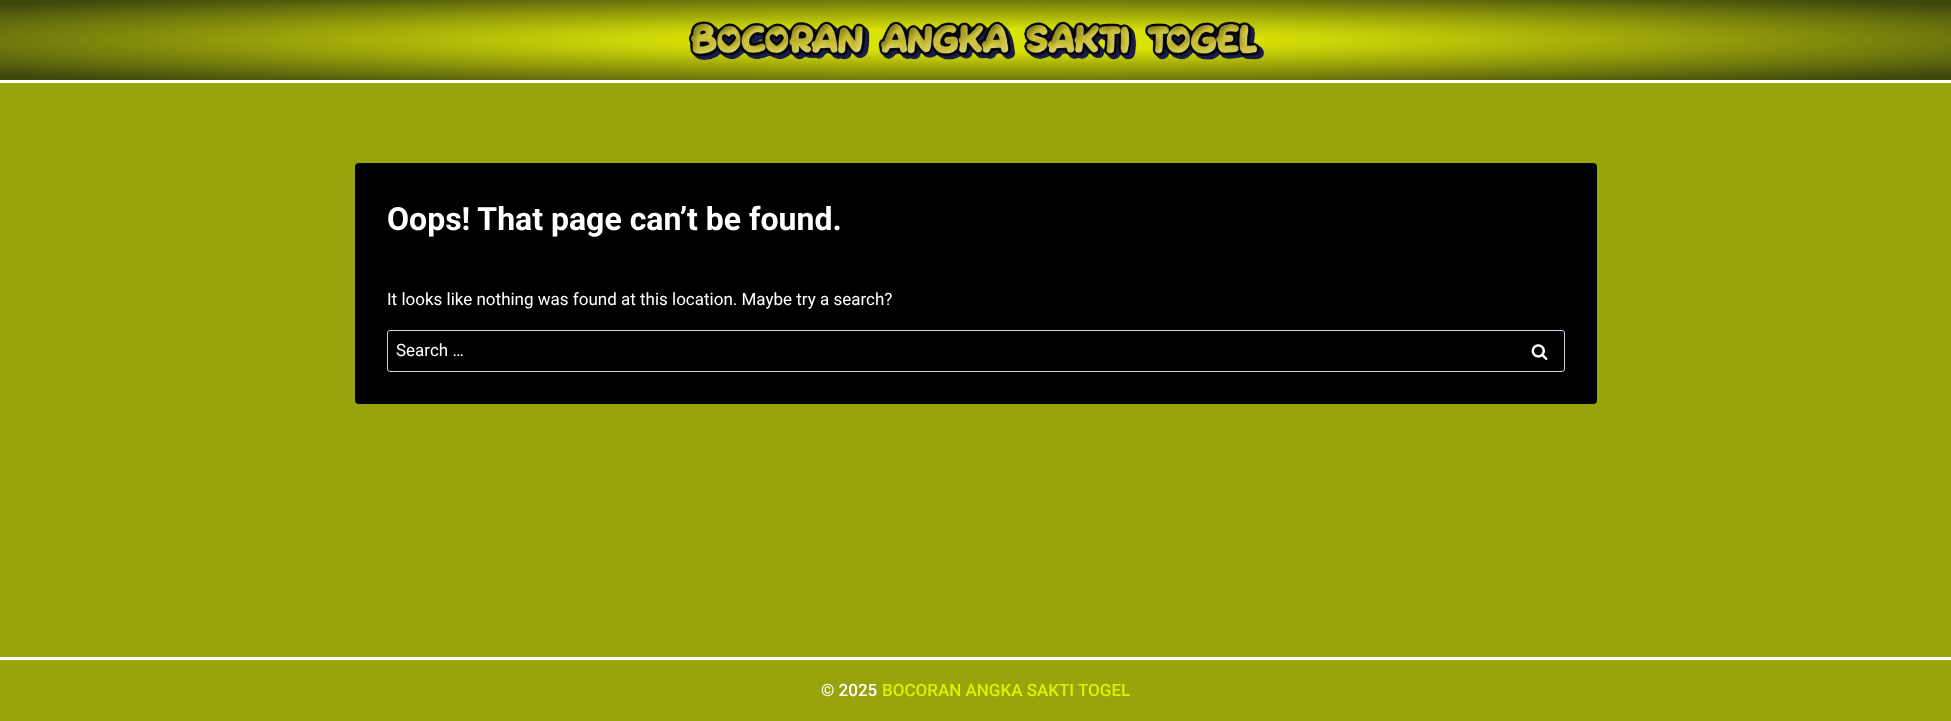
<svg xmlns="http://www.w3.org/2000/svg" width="1951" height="721">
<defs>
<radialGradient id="g1" gradientUnits="userSpaceOnUse" cx="0" cy="0" r="1" gradientTransform="matrix(1380 0 0 57 976 40)"><stop offset="0.19" stop-color="#dae306"/><stop offset="0.93" stop-color="#3f490e"/></radialGradient>
</defs>
<rect width="100%" height="100%" fill="#97a40a"/>
<rect width="1951" height="80" fill="url(#g1)"/>
<rect y="80" width="1951" height="3" fill="#fff"/>
<image x="688" y="21" width="577" height="40" href="media/1.png"/>
<rect x="355" y="163" width="1242" height="241" rx="4" fill="#000"/>
<text x="387" y="230" style="font-family:Roboto;font-size:32px;font-weight:bold;fill:#fff">Oops! That page can’t be found.</text>
<text x="387" y="305" style="font-family:Roboto;font-size:17px;fill:#fff">It looks like nothing was found at this location. Maybe try a search?</text>
<rect x="387.5" y="330.5" width="1177" height="41" rx="2.5" fill="none" stroke="#cbd5e0"/>
<text x="396" y="356" style="font-family:Roboto;font-size:17px;fill:#fff">Search …</text>
<image x="1531" y="344" width="17" height="16" href="media/2.png"/>
<rect y="657" width="1951" height="3" fill="#fff"/>
<text x="821" y="696" style="font-family:Roboto;font-size:17px;font-weight:500;fill:#fff">© 2025</text>
<text x="882" y="696" style="font-family:Roboto;font-size:17px;font-weight:500;fill:#ddf104">BOCORAN ANGKA SAKTI TOGEL</text>
</svg>
